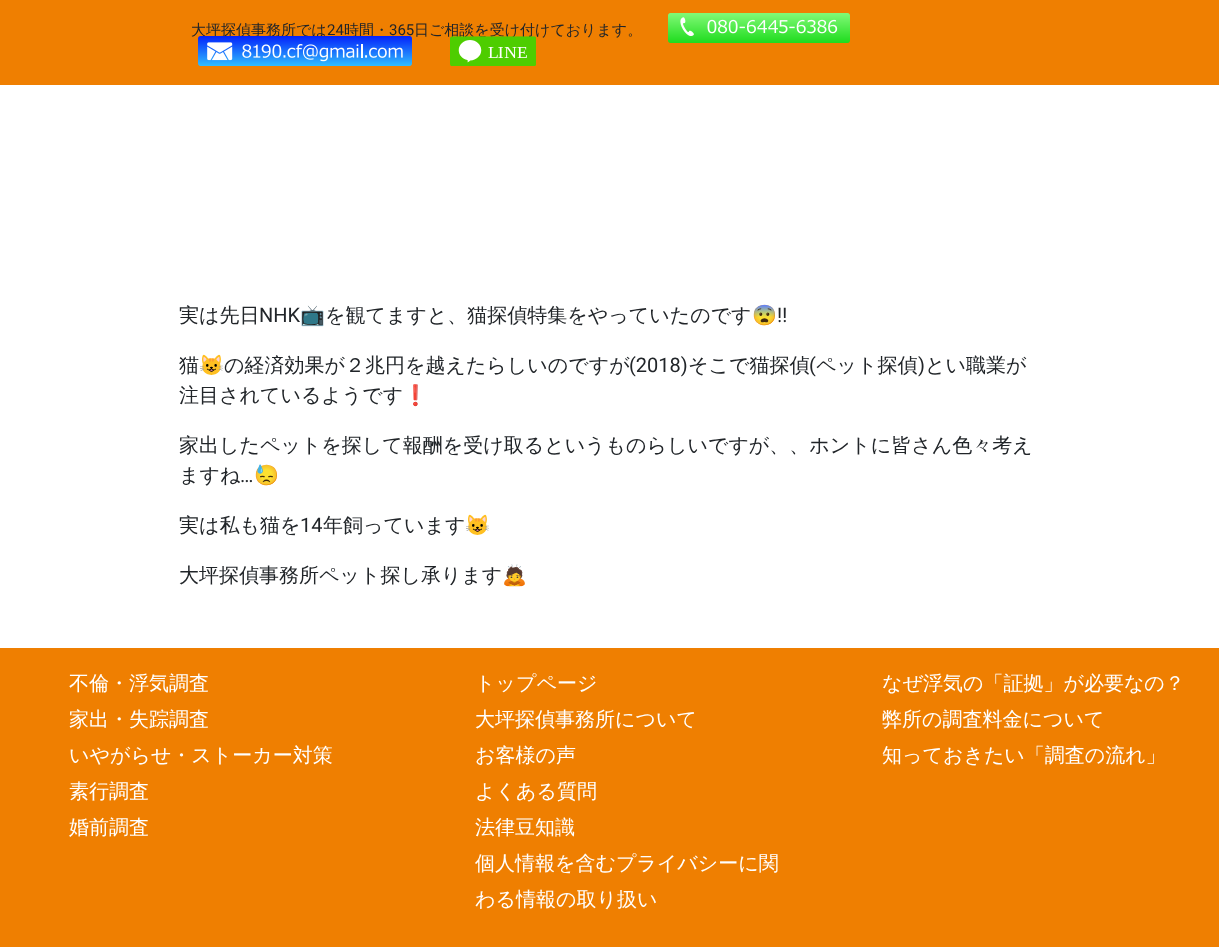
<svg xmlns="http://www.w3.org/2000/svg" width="1219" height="947">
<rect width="100%" height="100%" fill="#fff"/>
<rect width="1219" height="85" fill="#ef7f01"/>
<text x="191" y="35" style="font-family:WenQuanYi Zen Hei;font-size:15px;font-weight:500;fill:#212529">大坪探偵事務所では</text>
<text x="327" y="35" style="font-family:Roboto;font-size:15px;fill:#212529">24</text>
<text x="344" y="35" style="font-family:WenQuanYi Zen Hei;font-size:15px;font-weight:500;fill:#212529">時間・</text>
<text x="389" y="35" style="font-family:Roboto;font-size:15px;fill:#212529">365</text>
<text x="414" y="35" style="font-family:WenQuanYi Zen Hei;font-size:15px;font-weight:500;fill:#212529">日ご相談を受け付けております。</text>
<image x="668" y="13" width="182" height="30" href="media/1.png"/>
<image x="198" y="36" width="214" height="30" href="media/2.png"/>
<image x="450" y="36" width="86" height="30" href="media/3.png"/>
<text x="179" y="322" style="font-family:WenQuanYi Zen Hei;font-size:20px;font-weight:500;fill:#212529">実は先日</text>
<text x="259" y="322" style="font-family:Roboto;font-size:20px;fill:#212529">NHK</text>
<text x="300" y="322" style="font-family:Noto Color Emoji;font-size:20px;fill:#212529">📺</text>
<text x="325" y="322" style="font-family:WenQuanYi Zen Hei;font-size:20px;font-weight:500;fill:#212529">を観てますと、猫探偵特集をやっていたのです</text>
<text x="752" y="322" style="font-family:Noto Color Emoji;font-size:20px;fill:#212529">😨</text>
<text x="777" y="322" style="font-family:Roboto;font-size:20px;fill:#212529">‼</text>
<text x="179" y="372" style="font-family:WenQuanYi Zen Hei;font-size:20px;font-weight:500;fill:#212529">猫</text>
<text x="199" y="372" style="font-family:Noto Color Emoji;font-size:20px;fill:#212529">😺</text>
<text x="224" y="372" style="font-family:WenQuanYi Zen Hei;font-size:20px;font-weight:500;fill:#212529">の経済効果が２兆円を越えたらしいのですが</text>
<text x="629" y="372" style="font-family:Roboto;font-size:20px;fill:#212529">(2018)</text>
<text x="688" y="372" style="font-family:WenQuanYi Zen Hei;font-size:20px;font-weight:500;fill:#212529">そこで猫探偵</text>
<text x="809" y="372" style="font-family:Roboto;font-size:20px;fill:#212529">(</text>
<text x="816" y="372" style="font-family:WenQuanYi Zen Hei;font-size:20px;font-weight:500;fill:#212529">ペット探偵</text>
<text x="918" y="372" style="font-family:Roboto;font-size:20px;fill:#212529">)</text>
<text x="925" y="372" style="font-family:WenQuanYi Zen Hei;font-size:20px;font-weight:500;fill:#212529">とい職業が</text>
<text x="179" y="402" style="font-family:WenQuanYi Zen Hei;font-size:20px;font-weight:500;fill:#212529">注目されているようです</text>
<text x="403" y="402" style="font-family:Noto Color Emoji;font-size:20px;fill:#212529">❗</text>
<text x="179" y="452" style="font-family:WenQuanYi Zen Hei;font-size:20px;font-weight:500;fill:#212529">家出したペットを探して報酬を受け取るというものらしいですが、、ホントに皆さん色々考え</text>
<text x="179" y="482" style="font-family:WenQuanYi Zen Hei;font-size:20px;font-weight:500;fill:#212529">ますね</text>
<text x="240" y="482" style="font-family:Roboto;font-size:20px;fill:#212529">…</text>
<text x="254" y="482" style="font-family:Noto Color Emoji;font-size:20px;fill:#212529">😓</text>
<text x="179" y="532" style="font-family:WenQuanYi Zen Hei;font-size:20px;font-weight:500;fill:#212529">実は私も猫を</text>
<text x="300" y="532" style="font-family:Roboto;font-size:20px;fill:#212529">14</text>
<text x="323" y="532" style="font-family:WenQuanYi Zen Hei;font-size:20px;font-weight:500;fill:#212529">年飼っています</text>
<text x="465" y="532" style="font-family:Noto Color Emoji;font-size:20px;fill:#212529">😺</text>
<text x="179" y="582" style="font-family:WenQuanYi Zen Hei;font-size:20px;font-weight:500;fill:#212529">大坪探偵事務所ペット探し承ります</text>
<text x="502" y="582" style="font-family:Noto Color Emoji;font-size:20px;fill:#212529">🙇</text>
<rect y="648" width="1219" height="299" fill="#ef7f01"/>
<text x="69" y="690" style="font-family:WenQuanYi Zen Hei;font-size:20px;font-weight:500;fill:#fff">不倫・浮気調査</text>
<text x="69" y="726" style="font-family:WenQuanYi Zen Hei;font-size:20px;font-weight:500;fill:#fff">家出・失踪調査</text>
<text x="69" y="762" style="font-family:WenQuanYi Zen Hei;font-size:20px;font-weight:500;fill:#fff">いやがらせ・ストーカー対策</text>
<text x="69" y="798" style="font-family:WenQuanYi Zen Hei;font-size:20px;font-weight:500;fill:#fff">素行調査</text>
<text x="69" y="834" style="font-family:WenQuanYi Zen Hei;font-size:20px;font-weight:500;fill:#fff">婚前調査</text>
<text x="475" y="690" style="font-family:WenQuanYi Zen Hei;font-size:20px;font-weight:500;fill:#fff">トップページ</text>
<text x="475" y="726" style="font-family:WenQuanYi Zen Hei;font-size:20px;font-weight:500;fill:#fff">大坪探偵事務所について</text>
<text x="475" y="762" style="font-family:WenQuanYi Zen Hei;font-size:20px;font-weight:500;fill:#fff">お客様の声</text>
<text x="475" y="798" style="font-family:WenQuanYi Zen Hei;font-size:20px;font-weight:500;fill:#fff">よくある質問</text>
<text x="475" y="834" style="font-family:WenQuanYi Zen Hei;font-size:20px;font-weight:500;fill:#fff">法律豆知識</text>
<text x="475" y="870" style="font-family:WenQuanYi Zen Hei;font-size:20px;font-weight:500;fill:#fff">個人情報を含むプライバシーに関</text>
<text x="475" y="906" style="font-family:WenQuanYi Zen Hei;font-size:20px;font-weight:500;fill:#fff">わる情報の取り扱い</text>
<text x="882" y="690" style="font-family:WenQuanYi Zen Hei;font-size:20px;font-weight:500;fill:#fff">なぜ浮気の「証拠」が必要なの？</text>
<text x="882" y="726" style="font-family:WenQuanYi Zen Hei;font-size:20px;font-weight:500;fill:#fff">弊所の調査料金について</text>
<text x="882" y="762" style="font-family:WenQuanYi Zen Hei;font-size:20px;font-weight:500;fill:#fff">知っておきたい「調査の流れ」</text>
</svg>
